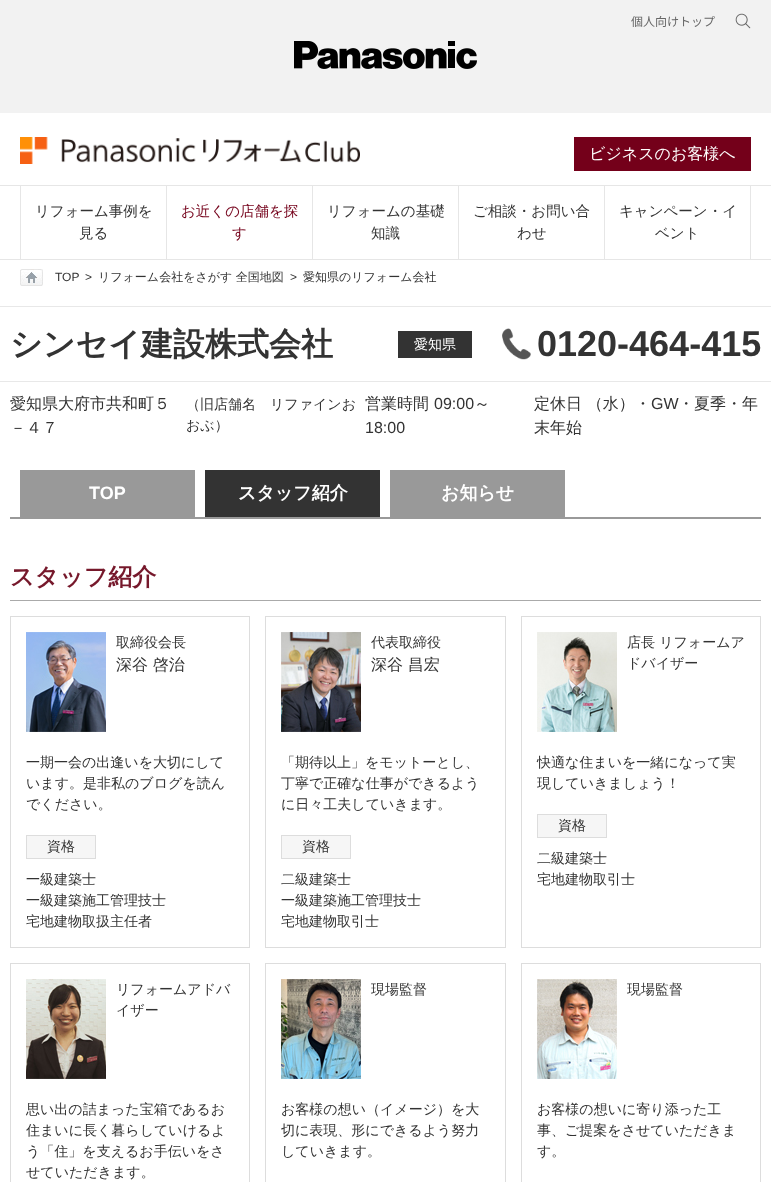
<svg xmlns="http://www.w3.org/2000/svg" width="771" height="1182">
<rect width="100%" height="100%" fill="#fff"/>
<rect width="771" height="113" fill="#f2f2f2"/>
<text x="631" y="26" style="font-family:Noto Sans JP;font-size:12px;fill:#666">個人向けトップ</text>
<image x="735" y="13" width="16" height="16" href="media/1.png"/>
<image x="294" y="41" width="183" height="28" href="media/2.png"/>
<image x="20" y="137" width="340" height="27" href="media/3.png"/>
<rect x="574" y="137" width="177" height="34" fill="#74001a"/>
<text x="589" y="159" style="font-family:WenQuanYi Zen Hei;font-size:16px;font-weight:500;fill:#fff">ビジネスのお客様へ</text>
<rect y="185" width="771" height="1" fill="#e6e6e6"/>
<rect y="259" width="771" height="1" fill="#e6e6e6"/>
<rect x="20" y="186" width="1" height="73" fill="#e6e6e6"/>
<text x="35" y="216" style="font-family:WenQuanYi Zen Hei;font-size:14.5px;font-weight:500;fill:#333">リフォーム事例を</text>
<text x="79" y="238" style="font-family:WenQuanYi Zen Hei;font-size:14.5px;font-weight:500;fill:#333">見る</text>
<rect x="166" y="186" width="1" height="73" fill="#e6e6e6"/>
<text x="181" y="216" style="font-family:WenQuanYi Zen Hei;font-size:14.5px;font-weight:500;fill:#74001a">お近くの店舗を探</text>
<text x="232" y="238" style="font-family:WenQuanYi Zen Hei;font-size:14.5px;font-weight:500;fill:#74001a">す</text>
<rect x="312" y="186" width="1" height="73" fill="#e6e6e6"/>
<text x="327" y="216" style="font-family:WenQuanYi Zen Hei;font-size:14.5px;font-weight:500;fill:#333">リフォームの基礎</text>
<text x="371" y="238" style="font-family:WenQuanYi Zen Hei;font-size:14.5px;font-weight:500;fill:#333">知識</text>
<rect x="458" y="186" width="1" height="73" fill="#e6e6e6"/>
<text x="473" y="216" style="font-family:WenQuanYi Zen Hei;font-size:14.5px;font-weight:500;fill:#333">ご相談・お問い合</text>
<text x="517" y="238" style="font-family:WenQuanYi Zen Hei;font-size:14.5px;font-weight:500;fill:#333">わせ</text>
<rect x="750" y="186" width="1" height="73" fill="#e6e6e6"/>
<rect x="604" y="186" width="1" height="73" fill="#e6e6e6"/>
<text x="619" y="216" style="font-family:WenQuanYi Zen Hei;font-size:14.5px;font-weight:500;fill:#333">キャンペーン・イ</text>
<text x="655" y="238" style="font-family:WenQuanYi Zen Hei;font-size:14.5px;font-weight:500;fill:#333">ベント</text>
<image x="20" y="269" width="23" height="17" href="media/4.png"/>
<text x="55" y="281" style="font-family:Liberation Sans;font-size:12px;fill:#333">TOP</text>
<text x="85" y="281" style="font-family:Liberation Sans;font-size:12px;fill:#333">&gt;</text>
<text x="98" y="281" style="font-family:WenQuanYi Zen Hei;font-size:12px;font-weight:500;fill:#333">リフォーム会社をさがす 全国地図</text>
<text x="290" y="281" style="font-family:Liberation Sans;font-size:12px;fill:#333">&gt;</text>
<text x="303" y="281" style="font-family:WenQuanYi Zen Hei;font-size:12px;font-weight:500;fill:#333">愛知県のリフォーム会社</text>
<rect y="306" width="771" height="1" fill="#e8e8e8"/>
<rect y="381" width="771" height="1" fill="#e8e8e8"/>
<text x="10" y="355" style="font-family:WenQuanYi Zen Hei;font-size:32px;font-weight:bold;fill:#333">シンセイ建設株式会社</text>
<rect x="398" y="331" width="74" height="27" fill="#333"/>
<text x="414" y="349" style="font-family:WenQuanYi Zen Hei;font-size:14px;font-weight:500;fill:#fff">愛知県</text>
<image x="502" y="328" width="29" height="32" href="media/5.png"/>
<text x="537" y="356" style="font-family:Liberation Sans;font-size:36px;font-weight:bold;fill:#333">0120-464-415</text>
<text x="10" y="409" style="font-family:WenQuanYi Zen Hei;font-size:16px;font-weight:500;fill:#333">愛知県大府市共和町５</text>
<text x="10" y="433" style="font-family:WenQuanYi Zen Hei;font-size:16px;font-weight:500;fill:#333">－４７</text>
<text x="186" y="409" style="font-family:WenQuanYi Zen Hei;font-size:14px;font-weight:500;fill:#333">（旧店舗名　リファインお</text>
<text x="186" y="430" style="font-family:WenQuanYi Zen Hei;font-size:14px;font-weight:500;fill:#333">おぶ）</text>
<text x="365" y="409" style="font-family:WenQuanYi Zen Hei;font-size:16px;font-weight:500;fill:#333">営業時間</text>
<text x="434" y="409" style="font-family:Liberation Sans;font-size:16px;fill:#333">09:00</text>
<text x="474" y="409" style="font-family:WenQuanYi Zen Hei;font-size:16px;font-weight:500;fill:#333">～</text>
<text x="365" y="433" style="font-family:Liberation Sans;font-size:16px;fill:#333">18:00</text>
<text x="534" y="409" style="font-family:WenQuanYi Zen Hei;font-size:16px;font-weight:500;fill:#333">定休日 （水）・</text>
<text x="651" y="409" style="font-family:Liberation Sans;font-size:16px;fill:#333">GW</text>
<text x="678" y="409" style="font-family:WenQuanYi Zen Hei;font-size:16px;font-weight:500;fill:#333">・夏季・年</text>
<text x="534" y="433" style="font-family:WenQuanYi Zen Hei;font-size:16px;font-weight:500;fill:#333">末年始</text>
<rect x="10" y="517" width="751" height="2" fill="#999"/>
<rect x="20" y="470" width="175" height="47" fill="#999"/>
<text x="89" y="499" style="font-family:Liberation Sans;font-size:18px;font-weight:bold;fill:#fff">TOP</text>
<rect x="205" y="470" width="175" height="47" fill="#333"/>
<text x="238" y="499" style="font-family:WenQuanYi Zen Hei;font-size:18px;font-weight:bold;fill:#fff">スタッフ紹介</text>
<rect x="390" y="470" width="175" height="47" fill="#999"/>
<text x="441" y="499" style="font-family:WenQuanYi Zen Hei;font-size:18px;font-weight:bold;fill:#fff">お知らせ</text>
<rect x="10" y="600" width="751" height="1" fill="#aaa"/>
<text x="10" y="585" style="font-family:WenQuanYi Zen Hei;font-size:24px;font-weight:bold;fill:#76182b">スタッフ紹介</text>
<rect x="10.5" y="616.5" width="239" height="331" fill="none" stroke="#ddd"/>
<image x="26" y="632" width="80" height="100" href="media/6.png"/>
<text x="116" y="647" style="font-family:WenQuanYi Zen Hei;font-size:14px;font-weight:500;fill:#333">取締役会長</text>
<text x="116" y="670" style="font-family:WenQuanYi Zen Hei;font-size:16px;font-weight:500;fill:#333">深谷 啓治</text>
<text x="26" y="767" style="font-family:WenQuanYi Zen Hei;font-size:14px;font-weight:500;fill:#333">一期一会の出逢いを大切にして</text>
<text x="26" y="788" style="font-family:WenQuanYi Zen Hei;font-size:14px;font-weight:500;fill:#333">います。是非私のブログを読ん</text>
<text x="26" y="809" style="font-family:WenQuanYi Zen Hei;font-size:14px;font-weight:500;fill:#333">でください。</text>
<rect x="26.5" y="835.5" width="69" height="23" fill="#f6f6f6" stroke="#ddd"/>
<text x="47" y="851" style="font-family:WenQuanYi Zen Hei;font-size:14px;font-weight:500;fill:#333">資格</text>
<text x="26" y="884" style="font-family:WenQuanYi Zen Hei;font-size:14px;font-weight:500;fill:#333">一級建築士</text>
<text x="26" y="905" style="font-family:WenQuanYi Zen Hei;font-size:14px;font-weight:500;fill:#333">一級建築施工管理技士</text>
<text x="26" y="926" style="font-family:WenQuanYi Zen Hei;font-size:14px;font-weight:500;fill:#333">宅地建物取扱主任者</text>
<rect x="265.5" y="616.5" width="240" height="331" fill="none" stroke="#ddd"/>
<image x="281" y="632" width="80" height="100" href="media/7.png"/>
<text x="371" y="647" style="font-family:WenQuanYi Zen Hei;font-size:14px;font-weight:500;fill:#333">代表取締役</text>
<text x="371" y="670" style="font-family:WenQuanYi Zen Hei;font-size:16px;font-weight:500;fill:#333">深谷 昌宏</text>
<text x="281" y="767" style="font-family:WenQuanYi Zen Hei;font-size:14px;font-weight:500;fill:#333">「期待以上」をモットーとし、</text>
<text x="281" y="788" style="font-family:WenQuanYi Zen Hei;font-size:14px;font-weight:500;fill:#333">丁寧で正確な仕事ができるよう</text>
<text x="281" y="809" style="font-family:WenQuanYi Zen Hei;font-size:14px;font-weight:500;fill:#333">に日々工夫していきます。</text>
<rect x="281.5" y="835.5" width="69" height="23" fill="#f6f6f6" stroke="#ddd"/>
<text x="302" y="851" style="font-family:WenQuanYi Zen Hei;font-size:14px;font-weight:500;fill:#333">資格</text>
<text x="281" y="884" style="font-family:WenQuanYi Zen Hei;font-size:14px;font-weight:500;fill:#333">二級建築士</text>
<text x="281" y="905" style="font-family:WenQuanYi Zen Hei;font-size:14px;font-weight:500;fill:#333">一級建築施工管理技士</text>
<text x="281" y="926" style="font-family:WenQuanYi Zen Hei;font-size:14px;font-weight:500;fill:#333">宅地建物取引士</text>
<rect x="521.5" y="616.5" width="239" height="331" fill="none" stroke="#ddd"/>
<image x="537" y="632" width="80" height="100" href="media/8.png"/>
<text x="627" y="647" style="font-family:WenQuanYi Zen Hei;font-size:14px;font-weight:500;fill:#333">店長 リフォームア</text>
<text x="627" y="668" style="font-family:WenQuanYi Zen Hei;font-size:14px;font-weight:500;fill:#333">ドバイザー</text>
<text x="537" y="767" style="font-family:WenQuanYi Zen Hei;font-size:14px;font-weight:500;fill:#333">快適な住まいを一緒になって実</text>
<text x="537" y="788" style="font-family:WenQuanYi Zen Hei;font-size:14px;font-weight:500;fill:#333">現していきましょう！</text>
<rect x="537.5" y="814.5" width="69" height="23" fill="#f6f6f6" stroke="#ddd"/>
<text x="558" y="830" style="font-family:WenQuanYi Zen Hei;font-size:14px;font-weight:500;fill:#333">資格</text>
<text x="537" y="863" style="font-family:WenQuanYi Zen Hei;font-size:14px;font-weight:500;fill:#333">二級建築士</text>
<text x="537" y="884" style="font-family:WenQuanYi Zen Hei;font-size:14px;font-weight:500;fill:#333">宅地建物取引士</text>
<rect x="10.5" y="963.5" width="239" height="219" fill="none" stroke="#ddd"/>
<image x="26" y="979" width="80" height="100" href="media/9.png"/>
<text x="116" y="994" style="font-family:WenQuanYi Zen Hei;font-size:14px;font-weight:500;fill:#333">リフォームアドバ</text>
<text x="116" y="1015" style="font-family:WenQuanYi Zen Hei;font-size:14px;font-weight:500;fill:#333">イザー</text>
<text x="26" y="1114" style="font-family:WenQuanYi Zen Hei;font-size:14px;font-weight:500;fill:#333">思い出の詰まった宝箱であるお</text>
<text x="26" y="1135" style="font-family:WenQuanYi Zen Hei;font-size:14px;font-weight:500;fill:#333">住まいに長く暮らしていけるよ</text>
<text x="26" y="1156" style="font-family:WenQuanYi Zen Hei;font-size:14px;font-weight:500;fill:#333">う「住」を支えるお手伝いをさ</text>
<text x="26" y="1177" style="font-family:WenQuanYi Zen Hei;font-size:14px;font-weight:500;fill:#333">せていただきます。</text>
<rect x="265.5" y="963.5" width="240" height="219" fill="none" stroke="#ddd"/>
<image x="281" y="979" width="80" height="100" href="media/10.png"/>
<text x="371" y="994" style="font-family:WenQuanYi Zen Hei;font-size:14px;font-weight:500;fill:#333">現場監督</text>
<text x="281" y="1114" style="font-family:WenQuanYi Zen Hei;font-size:14px;font-weight:500;fill:#333">お客様の想い（イメージ）を大</text>
<text x="281" y="1135" style="font-family:WenQuanYi Zen Hei;font-size:14px;font-weight:500;fill:#333">切に表現、形にできるよう努力</text>
<text x="281" y="1156" style="font-family:WenQuanYi Zen Hei;font-size:14px;font-weight:500;fill:#333">していきます。</text>
<rect x="521.5" y="963.5" width="239" height="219" fill="none" stroke="#ddd"/>
<image x="537" y="979" width="80" height="100" href="media/11.png"/>
<text x="627" y="994" style="font-family:WenQuanYi Zen Hei;font-size:14px;font-weight:500;fill:#333">現場監督</text>
<text x="537" y="1114" style="font-family:WenQuanYi Zen Hei;font-size:14px;font-weight:500;fill:#333">お客様の想いに寄り添った工</text>
<text x="537" y="1135" style="font-family:WenQuanYi Zen Hei;font-size:14px;font-weight:500;fill:#333">事、ご提案をさせていただきま</text>
<text x="537" y="1156" style="font-family:WenQuanYi Zen Hei;font-size:14px;font-weight:500;fill:#333">す。</text>
</svg>
